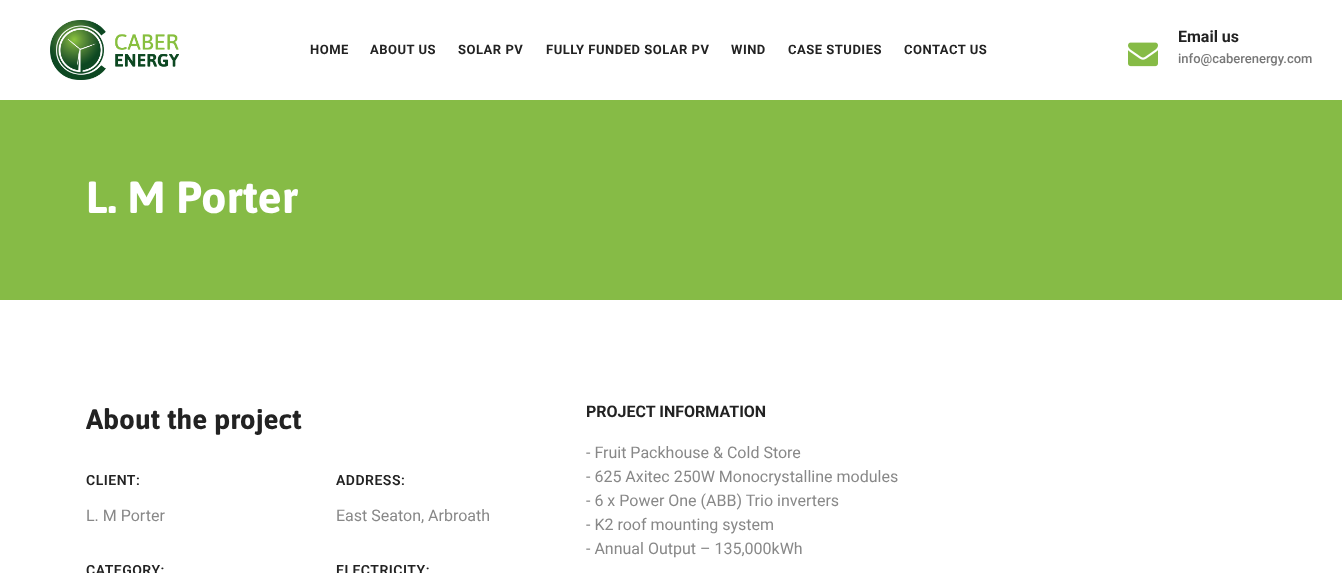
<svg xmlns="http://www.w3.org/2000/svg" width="1342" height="573">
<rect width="100%" height="100%" fill="#fff"/>
<image x="50" y="20" width="129" height="60" href="media/1.png"/>
<text x="310" y="54" style="font-family:Roboto;font-size:13px;font-weight:bold;letter-spacing:0.5px;fill:#222">HOME</text>
<text x="370" y="54" style="font-family:Roboto;font-size:13px;font-weight:bold;letter-spacing:0.5px;fill:#222">ABOUT US</text>
<text x="458" y="54" style="font-family:Roboto;font-size:13px;font-weight:bold;letter-spacing:0.5px;fill:#222">SOLAR PV</text>
<text x="546" y="54" style="font-family:Roboto;font-size:13px;font-weight:bold;letter-spacing:0.5px;fill:#222">FULLY FUNDED SOLAR PV</text>
<text x="731" y="54" style="font-family:Roboto;font-size:13px;font-weight:bold;letter-spacing:0.5px;fill:#222">WIND</text>
<text x="788" y="54" style="font-family:Roboto;font-size:13px;font-weight:bold;letter-spacing:0.5px;fill:#222">CASE STUDIES</text>
<text x="904" y="54" style="font-family:Roboto;font-size:13px;font-weight:bold;letter-spacing:0.5px;fill:#222">CONTACT US</text>
<text x="1178" y="42" style="font-family:Roboto;font-size:16px;font-weight:bold;fill:#222">Email us</text>
<image x="1128" y="42" width="30" height="25" href="media/2.png"/>
<text x="1178" y="63" style="font-family:Roboto;font-size:13px;font-weight:500;fill:#777">info@caberenergy.com</text>
<rect y="100" width="1342" height="200" fill="#86bb46"/>
<text x="86" y="213" style="font-family:Asap;font-size:45px;font-weight:bold;fill:#fff">L. M Porter</text>
<text x="86" y="429" style="font-family:Asap;font-size:28px;font-weight:bold;fill:#222">About the project</text>
<text x="86" y="485" style="font-family:Roboto;font-size:14px;font-weight:600;letter-spacing:0.5px;fill:#222">CLIENT:</text>
<text x="86" y="521" style="font-family:Roboto;font-size:16px;fill:#888">L. M Porter</text>
<text x="336" y="485" style="font-family:Roboto;font-size:14px;font-weight:600;letter-spacing:0.5px;fill:#222">ADDRESS:</text>
<text x="336" y="521" style="font-family:Roboto;font-size:16px;fill:#888">East Seaton, Arbroath</text>
<text x="86" y="575" style="font-family:Roboto;font-size:14px;font-weight:600;letter-spacing:0.5px;fill:#222">CATEGORY:</text>
<text x="336" y="575" style="font-family:Roboto;font-size:14px;font-weight:600;letter-spacing:0.5px;fill:#222">ELECTRICITY:</text>
<text x="586" y="417" style="font-family:Roboto;font-size:16px;font-weight:bold;fill:#222">PROJECT INFORMATION</text>
<text x="586" y="458" style="font-family:Roboto;font-size:16px;fill:#888">- Fruit Packhouse &amp; Cold Store</text>
<text x="586" y="482" style="font-family:Roboto;font-size:16px;fill:#888">- 625 Axitec 250W Monocrystalline modules</text>
<text x="586" y="506" style="font-family:Roboto;font-size:16px;fill:#888">- 6 x Power One (ABB) Trio inverters</text>
<text x="586" y="530" style="font-family:Roboto;font-size:16px;fill:#888">- K2 roof mounting system</text>
<text x="586" y="554" style="font-family:Roboto;font-size:16px;fill:#888">- Annual Output – 135,000kWh</text>
</svg>
